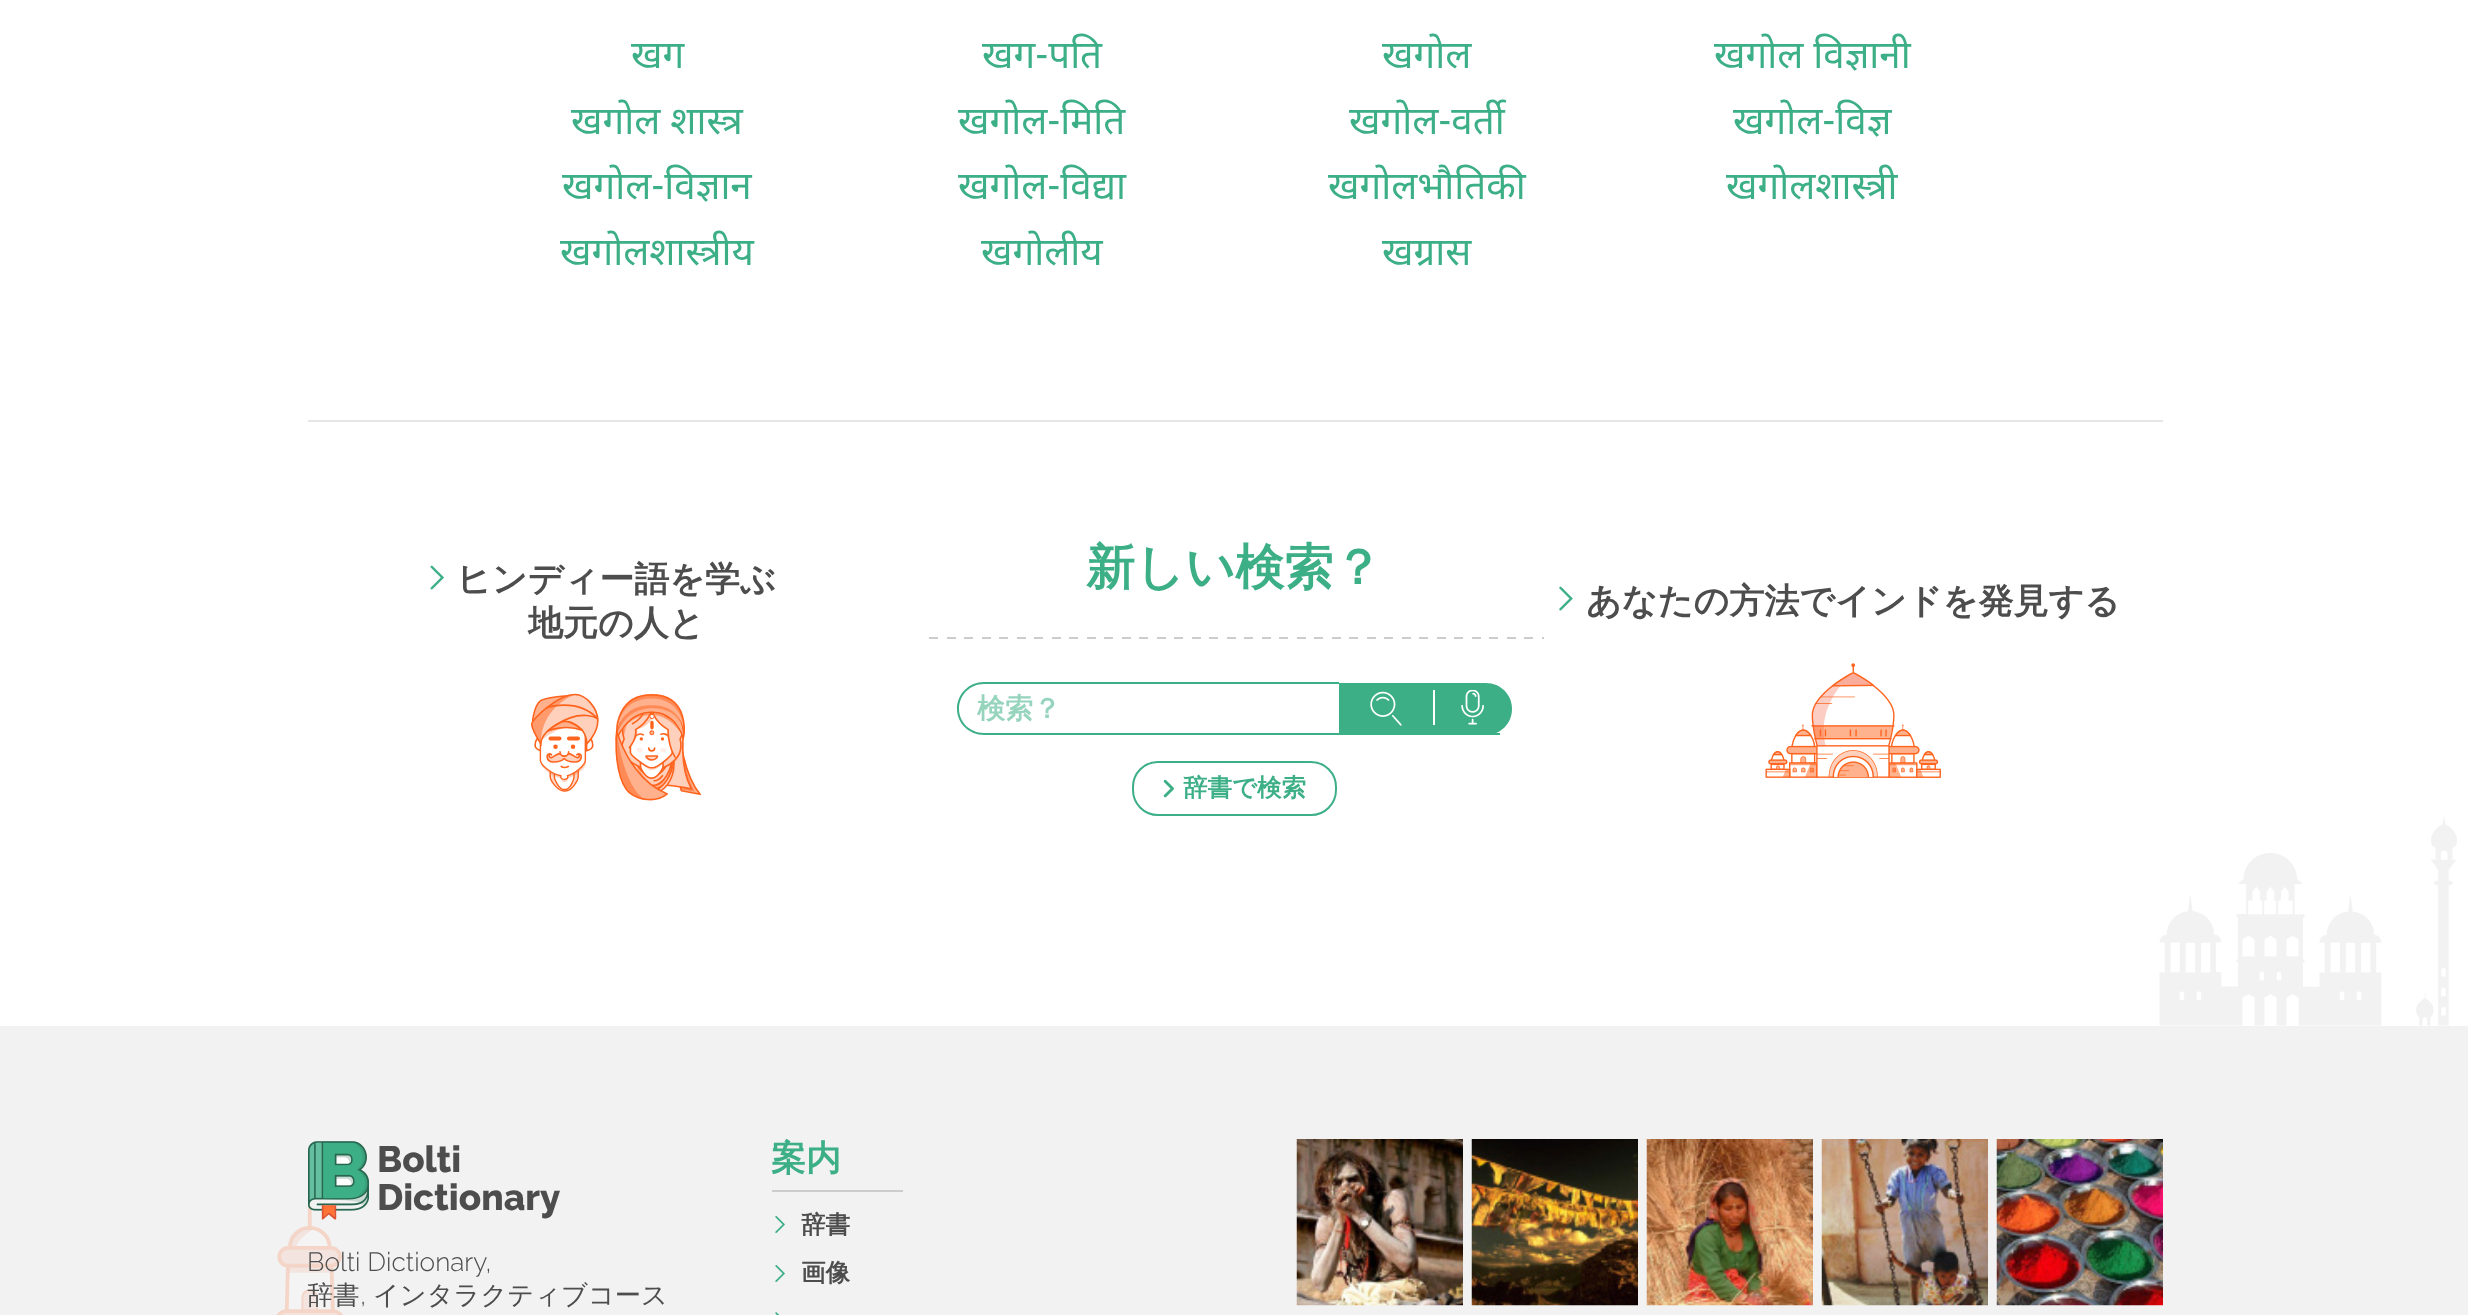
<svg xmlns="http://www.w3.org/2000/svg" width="2468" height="1315">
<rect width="100%" height="100%" fill="#fff"/>
<image x="2159" y="817" width="298" height="209" href="media/1.png"/>
<text x="631" y="68" style="font-family:Noto Sans Devanagari;font-size:38.5px;fill:#3caf87">खग</text>
<text x="982" y="68" style="font-family:Noto Sans Devanagari;font-size:38.5px;fill:#3caf87">खग-पति</text>
<text x="1382" y="68" style="font-family:Noto Sans Devanagari;font-size:38.5px;fill:#3caf87">खगोल</text>
<text x="1714" y="68" style="font-family:Noto Sans Devanagari;font-size:38.5px;fill:#3caf87">खगोल विज्ञानी</text>
<text x="571" y="134" style="font-family:Noto Sans Devanagari;font-size:38.5px;fill:#3caf87">खगोल शास्त्र</text>
<text x="958" y="134" style="font-family:Noto Sans Devanagari;font-size:38.5px;fill:#3caf87">खगोल-मिति</text>
<text x="1349" y="134" style="font-family:Noto Sans Devanagari;font-size:38.5px;fill:#3caf87">खगोल-वर्ती</text>
<text x="1733" y="134" style="font-family:Noto Sans Devanagari;font-size:38.5px;fill:#3caf87">खगोल-विज्ञ</text>
<text x="562" y="199" style="font-family:Noto Sans Devanagari;font-size:38.5px;fill:#3caf87">खगोल-विज्ञान</text>
<text x="958" y="199" style="font-family:Noto Sans Devanagari;font-size:38.5px;fill:#3caf87">खगोल-विद्या</text>
<text x="1328" y="199" style="font-family:Noto Sans Devanagari;font-size:38.5px;fill:#3caf87">खगोलभौतिकी</text>
<text x="1726" y="199" style="font-family:Noto Sans Devanagari;font-size:38.5px;fill:#3caf87">खगोलशास्त्री</text>
<text x="560" y="265" style="font-family:Noto Sans Devanagari;font-size:38.5px;fill:#3caf87">खगोलशास्त्रीय</text>
<text x="981" y="265" style="font-family:Noto Sans Devanagari;font-size:38.5px;fill:#3caf87">खगोलीय</text>
<text x="1382" y="265" style="font-family:Noto Sans Devanagari;font-size:38.5px;fill:#3caf87">खग्रास</text>
<rect x="308" y="420" width="1855" height="2" fill="#e6e6e6"/>
<image x="530" y="693" width="171" height="108" href="media/2.png"/>
<image x="430" y="565" width="14" height="25" href="media/3.png"/>
<text x="456" y="591" style="font-family:WenQuanYi Zen Hei;font-size:35px;font-weight:bold;fill:#4d4d4d">ヒンディー語を学ぶ</text>
<text x="528" y="635" style="font-family:WenQuanYi Zen Hei;font-size:35px;font-weight:bold;fill:#4d4d4d">地元の人と</text>
<text x="1086" y="584" style="font-family:WenQuanYi Zen Hei;font-size:49px;font-weight:bold;fill:#3caf87">新しい検索？</text>
<image x="929" y="637" width="615" height="2" href="media/4.png"/>
<path d="M984 682h355v53h-355c-15 0-27-12-27-26c0-15 12-27 27-27zm0 2h355v49h-355c-14 0-25-11-25-24c0-14 11-25 25-25z" fill="#3caf87" fill-rule="evenodd"/>
<text x="977" y="718" style="font-family:WenQuanYi Zen Hei;font-size:28px;font-weight:bold;fill:#96d4be">検索？</text>
<rect x="1339" y="683" width="94" height="52" fill="#3caf87"/>
<image x="1370" y="691" width="32" height="35" href="media/5.png"/>
<path d="M1433 683h53c14.5 0 26 11.5 26 26c0 14.5-11.5 26-26 26h-53z" fill="#3caf87"/>
<image x="1461" y="690" width="23" height="35" href="media/6.png"/>
<rect x="1486" y="733" width="14" height="2" fill="#3caf87"/>
<rect x="1433" y="690" width="2" height="35" fill="#fff"/>
<rect x="1133" y="762" width="203" height="53" rx="25" fill="none" stroke="#3caf87" stroke-width="2"/>
<image x="1163" y="779" width="11" height="19" href="media/7.png"/>
<text x="1183" y="796" style="font-family:WenQuanYi Zen Hei;font-size:24.5px;font-weight:bold;fill:#3caf87">辞書で検索</text>
<image x="1765" y="663" width="176" height="115" href="media/8.png"/>
<image x="1559" y="586" width="14" height="25" href="media/9.png"/>
<text x="1586" y="613" style="font-family:WenQuanYi Zen Hei;font-size:35px;font-weight:bold;fill:#4d4d4d">あなたの方法でインドを発見する</text>
<rect y="1026" width="2468" height="289" fill="#f2f2f2"/>
<image x="276" y="1206" width="67" height="109" href="media/10.png"/>
<image x="308" y="1141" width="61" height="79" href="media/11.png"/>
<text x="377" y="1172" style="font-family:Raleway;font-size:36.75px;font-weight:800;fill:#4d4d4d">Bolti</text>
<text x="377" y="1210" style="font-family:Raleway;font-size:36.75px;font-weight:800;fill:#4d4d4d">Dictionary</text>
<text x="307" y="1271" style="font-family:Raleway;font-size:26.25px;font-weight:300;fill:#4d4d4d">Bolti Dictionary,</text>
<text x="307" y="1304" style="font-family:WenQuanYi Zen Hei;font-size:26.25px;font-weight:500;fill:#4d4d4d">辞書</text>
<text x="360" y="1304" style="font-family:Raleway;font-size:26.25px;font-weight:300;fill:#4d4d4d">,</text>
<text x="373" y="1304" style="font-family:WenQuanYi Zen Hei;font-size:26.25px;font-weight:500;fill:#4d4d4d">インタラクティブコース</text>
<text x="771" y="1170" style="font-family:WenQuanYi Zen Hei;font-size:35px;font-weight:bold;fill:#3caf87">案内</text>
<rect x="772" y="1190" width="131" height="2" fill="#ccc"/>
<image x="775" y="1216" width="10" height="17" href="media/12.png"/>
<text x="801" y="1233" style="font-family:WenQuanYi Zen Hei;font-size:24.5px;font-weight:bold;fill:#4d4d4d">辞書</text>
<image x="775" y="1265" width="10" height="17" href="media/12.png"/>
<text x="801" y="1281" style="font-family:WenQuanYi Zen Hei;font-size:24.5px;font-weight:bold;fill:#4d4d4d">画像</text>
<image x="775" y="1312" width="5" height="3" href="media/13.png"/>
<image x="1296" y="1139" width="167" height="167" href="media/14.png"/>
<image x="1471" y="1139" width="167" height="167" href="media/15.png"/>
<image x="1646" y="1139" width="167" height="167" href="media/16.png"/>
<image x="1821" y="1139" width="167" height="167" href="media/17.png"/>
<image x="1996" y="1139" width="167" height="167" href="media/18.png"/>
</svg>
